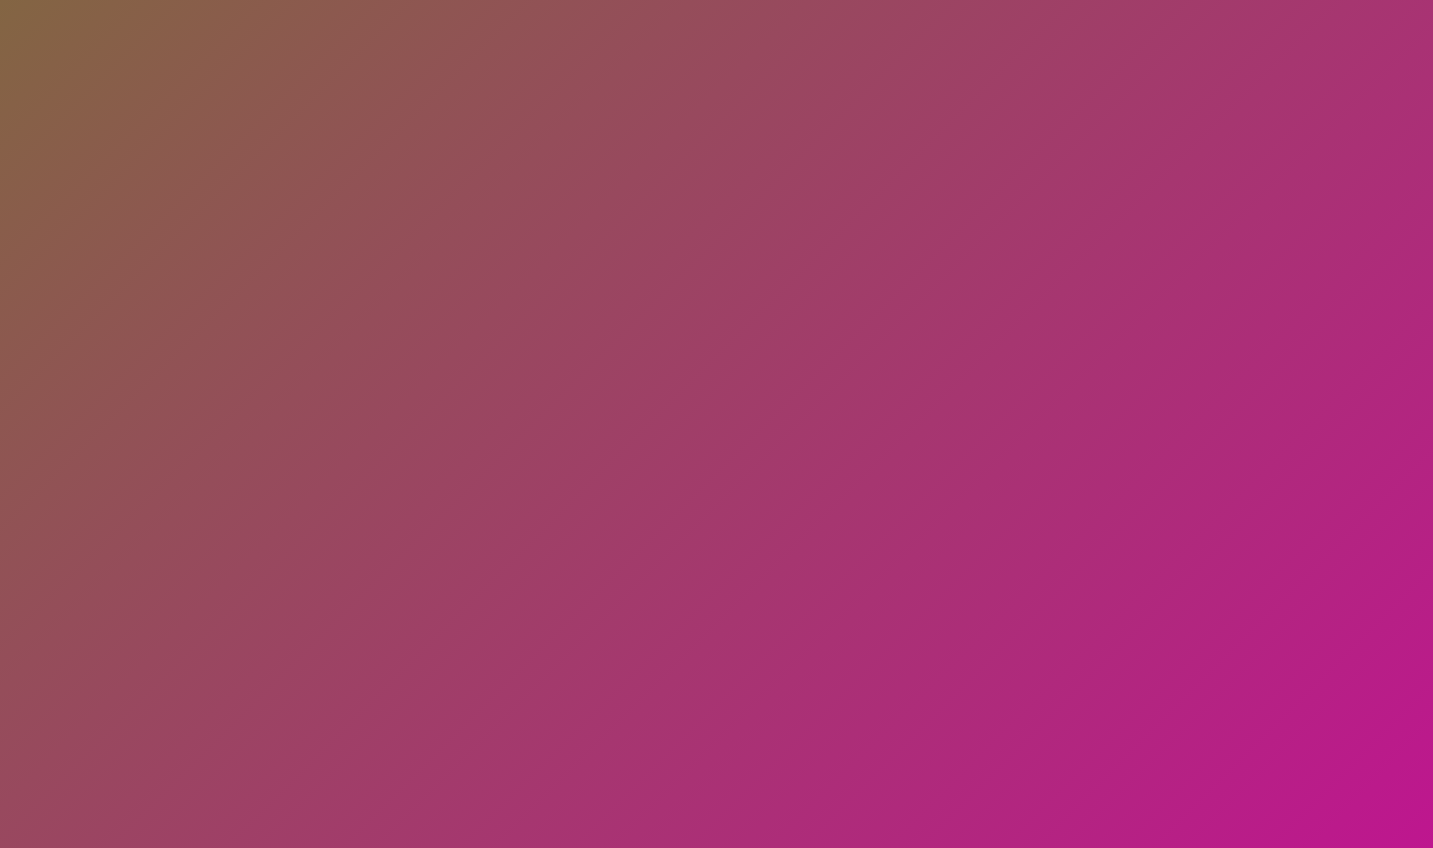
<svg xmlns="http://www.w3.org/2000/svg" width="1433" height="848">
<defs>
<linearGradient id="g1" gradientUnits="userSpaceOnUse" x1="146" y1="-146" x2="1287" y2="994"><stop offset="0" stop-color="#836543"/><stop offset="1" stop-color="#be168f"/></linearGradient>
</defs>
<rect width="100%" height="100%" fill="#fff"/>
<rect width="1433" height="848" fill="url(#g1)"/>
</svg>
